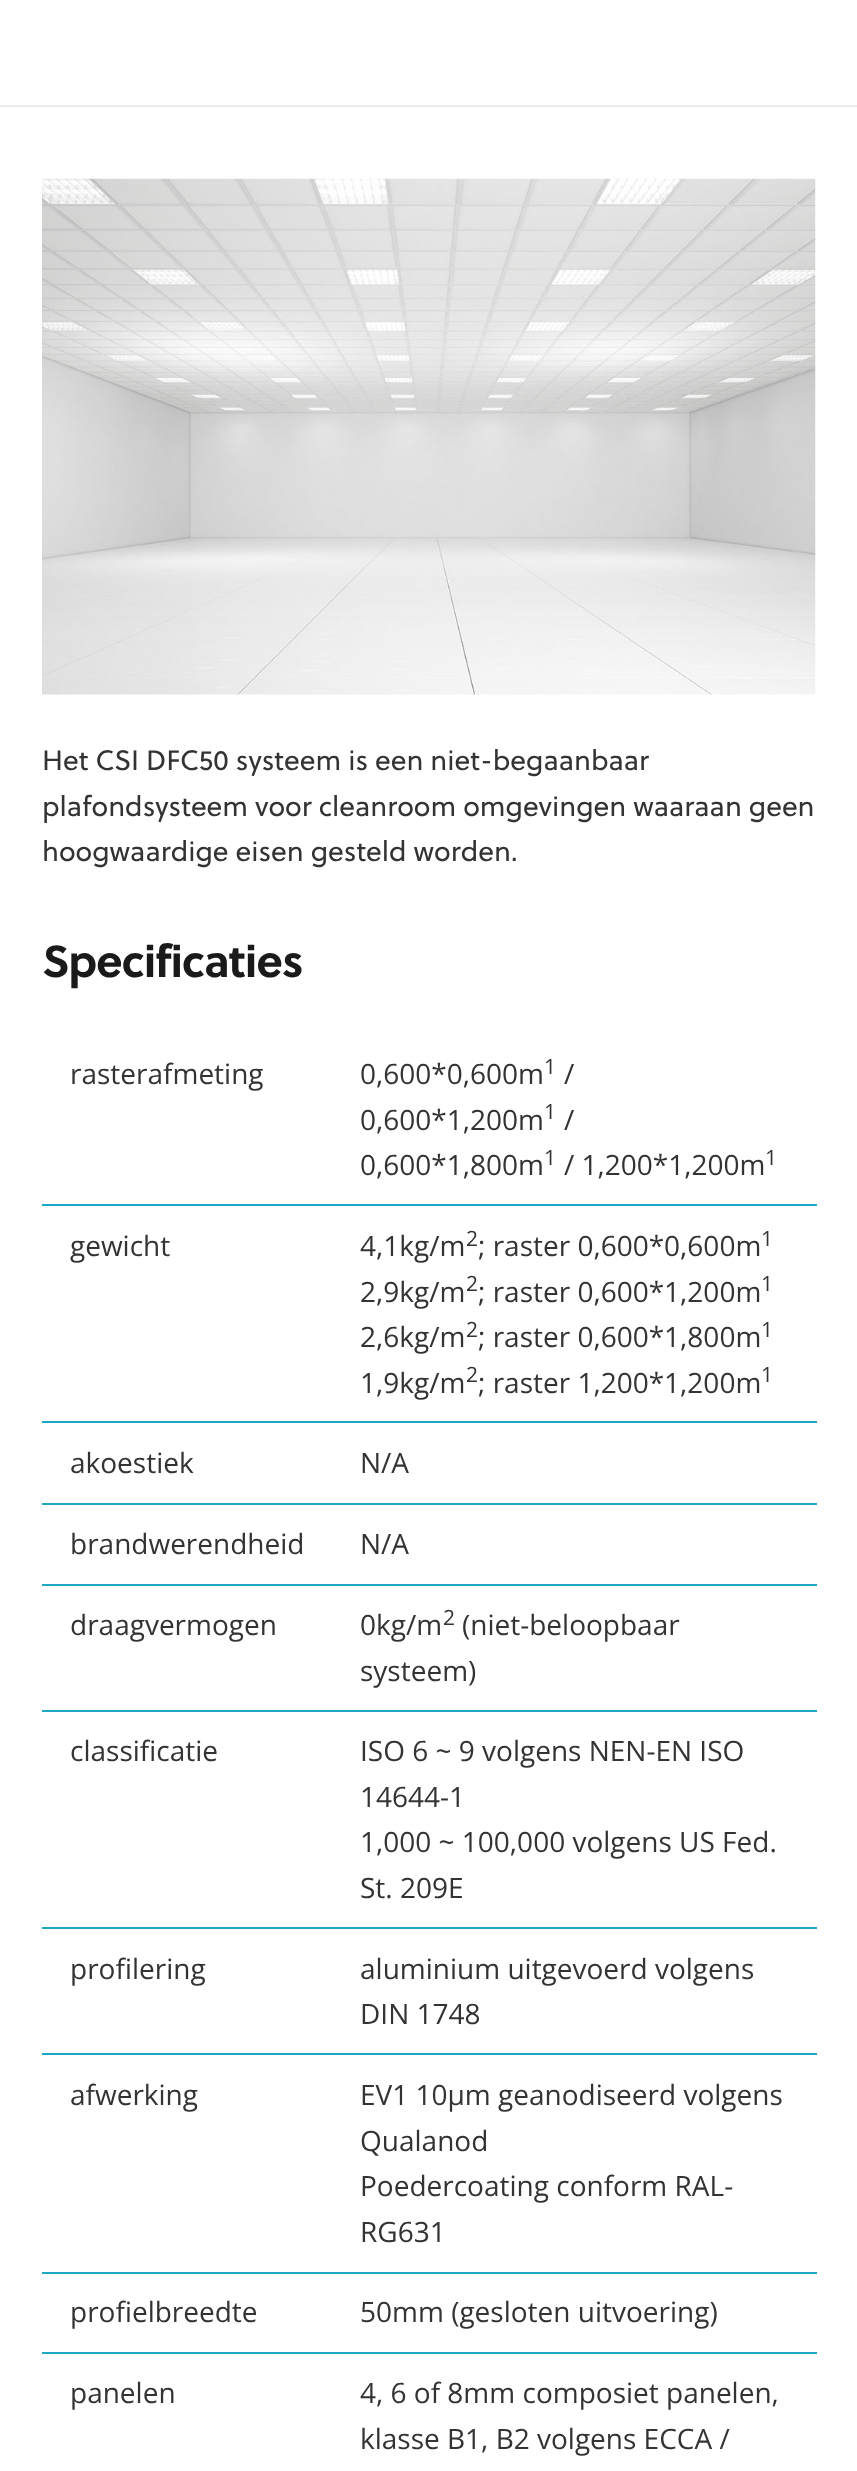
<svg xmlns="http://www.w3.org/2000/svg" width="857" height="2471">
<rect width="100%" height="100%" fill="#fff"/>
<path d="M0 105v2h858v-105v103z" fill="#ebebeb"/>
<image x="42" y="178" width="774" height="517" href="media/1.png"/>
<text x="42" y="770" style="font-family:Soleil;font-size:28px;fill:#333">Het CSI DFC50 systeem is een niet-begaanbaar</text>
<text x="42" y="816" style="font-family:Soleil;font-size:28px;fill:#333">plafondsysteem voor cleanroom omgevingen waaraan geen</text>
<text x="42" y="861" style="font-family:Soleil;font-size:28px;fill:#333">hoogwaardige eisen gesteld worden.</text>
<text x="42" y="977" style="font-family:Soleil;font-size:44.75px;font-weight:bold;letter-spacing:-0.9px;fill:#1a1a1a">Specificaties</text>
<text x="70" y="1084" style="font-family:Open Sans;font-size:28px;fill:#333">rasterafmeting</text>
<rect x="42" y="1204" width="775" height="2" fill="#1da6c6"/>
<text x="360" y="1084" style="font-family:Open Sans;font-size:28px;fill:#333">0,600*0,600m</text>
<text x="544" y="1074" style="font-family:Open Sans;font-size:21px;fill:#333">1</text>
<text x="564" y="1084" style="font-family:Open Sans;font-size:28px;fill:#333">/</text>
<text x="360" y="1130" style="font-family:Open Sans;font-size:28px;fill:#333">0,600*1,200m</text>
<text x="544" y="1119" style="font-family:Open Sans;font-size:21px;fill:#333">1</text>
<text x="564" y="1130" style="font-family:Open Sans;font-size:28px;fill:#333">/</text>
<text x="360" y="1175" style="font-family:Open Sans;font-size:28px;fill:#333">0,600*1,800m</text>
<text x="544" y="1165" style="font-family:Open Sans;font-size:21px;fill:#333">1</text>
<text x="564" y="1175" style="font-family:Open Sans;font-size:28px;fill:#333">/ 1,200*1,200m</text>
<text x="765" y="1165" style="font-family:Open Sans;font-size:21px;fill:#333">1</text>
<text x="70" y="1256" style="font-family:Open Sans;font-size:28px;fill:#333">gewicht</text>
<rect x="42" y="1421" width="775" height="2" fill="#1da6c6"/>
<text x="360" y="1256" style="font-family:Open Sans;font-size:28px;fill:#333">4,1kg/m</text>
<text x="466" y="1246" style="font-family:Open Sans;font-size:21px;fill:#333">2</text>
<text x="478" y="1256" style="font-family:Open Sans;font-size:28px;fill:#333">; raster 0,600*0,600m</text>
<text x="761" y="1246" style="font-family:Open Sans;font-size:21px;fill:#333">1</text>
<text x="360" y="1302" style="font-family:Open Sans;font-size:28px;fill:#333">2,9kg/m</text>
<text x="466" y="1291" style="font-family:Open Sans;font-size:21px;fill:#333">2</text>
<text x="478" y="1302" style="font-family:Open Sans;font-size:28px;fill:#333">; raster 0,600*1,200m</text>
<text x="761" y="1291" style="font-family:Open Sans;font-size:21px;fill:#333">1</text>
<text x="360" y="1347" style="font-family:Open Sans;font-size:28px;fill:#333">2,6kg/m</text>
<text x="466" y="1337" style="font-family:Open Sans;font-size:21px;fill:#333">2</text>
<text x="478" y="1347" style="font-family:Open Sans;font-size:28px;fill:#333">; raster 0,600*1,800m</text>
<text x="761" y="1337" style="font-family:Open Sans;font-size:21px;fill:#333">1</text>
<text x="360" y="1393" style="font-family:Open Sans;font-size:28px;fill:#333">1,9kg/m</text>
<text x="466" y="1382" style="font-family:Open Sans;font-size:21px;fill:#333">2</text>
<text x="478" y="1393" style="font-family:Open Sans;font-size:28px;fill:#333">; raster 1,200*1,200m</text>
<text x="761" y="1382" style="font-family:Open Sans;font-size:21px;fill:#333">1</text>
<text x="70" y="1473" style="font-family:Open Sans;font-size:28px;fill:#333">akoestiek</text>
<rect x="42" y="1503" width="775" height="2" fill="#1da6c6"/>
<text x="360" y="1473" style="font-family:Open Sans;font-size:28px;fill:#333">N/A</text>
<text x="70" y="1554" style="font-family:Open Sans;font-size:28px;fill:#333">brandwerendheid</text>
<rect x="42" y="1584" width="775" height="2" fill="#1da6c6"/>
<text x="360" y="1554" style="font-family:Open Sans;font-size:28px;fill:#333">N/A</text>
<text x="70" y="1635" style="font-family:Open Sans;font-size:28px;fill:#333">draagvermogen</text>
<rect x="42" y="1710" width="775" height="2" fill="#1da6c6"/>
<text x="360" y="1635" style="font-family:Open Sans;font-size:28px;fill:#333">0kg/m</text>
<text x="443" y="1625" style="font-family:Open Sans;font-size:21px;fill:#333">2</text>
<text x="462" y="1635" style="font-family:Open Sans;font-size:28px;fill:#333">(niet-beloopbaar</text>
<text x="360" y="1681" style="font-family:Open Sans;font-size:28px;fill:#333">systeem)</text>
<text x="70" y="1761" style="font-family:Open Sans;font-size:28px;fill:#333">classificatie</text>
<rect x="42" y="1927" width="775" height="2" fill="#1da6c6"/>
<text x="360" y="1761" style="font-family:Open Sans;font-size:28px;fill:#333">ISO 6 ~ 9 volgens NEN-EN ISO</text>
<text x="360" y="1807" style="font-family:Open Sans;font-size:28px;fill:#333">14644-1</text>
<text x="360" y="1852" style="font-family:Open Sans;font-size:28px;fill:#333">1,000 ~ 100,000 volgens US Fed.</text>
<text x="360" y="1898" style="font-family:Open Sans;font-size:28px;fill:#333">St. 209E</text>
<text x="70" y="1979" style="font-family:Open Sans;font-size:28px;fill:#333">profilering</text>
<rect x="42" y="2053" width="775" height="2" fill="#1da6c6"/>
<text x="360" y="1979" style="font-family:Open Sans;font-size:28px;fill:#333">aluminium uitgevoerd volgens</text>
<text x="360" y="2024" style="font-family:Open Sans;font-size:28px;fill:#333">DIN 1748</text>
<text x="70" y="2105" style="font-family:Open Sans;font-size:28px;fill:#333">afwerking</text>
<rect x="42" y="2272" width="775" height="2" fill="#1da6c6"/>
<text x="360" y="2105" style="font-family:Open Sans;font-size:28px;fill:#333">EV1 10µm geanodiseerd volgens</text>
<text x="360" y="2151" style="font-family:Open Sans;font-size:28px;fill:#333">Qualanod</text>
<text x="360" y="2196" style="font-family:Open Sans;font-size:28px;fill:#333">Poedercoating conform RAL-</text>
<text x="360" y="2242" style="font-family:Open Sans;font-size:28px;fill:#333">RG631</text>
<text x="70" y="2322" style="font-family:Open Sans;font-size:28px;fill:#333">profielbreedte</text>
<rect x="42" y="2352" width="775" height="2" fill="#1da6c6"/>
<text x="360" y="2322" style="font-family:Open Sans;font-size:28px;fill:#333">50mm (gesloten uitvoering)</text>
<text x="70" y="2403" style="font-family:Open Sans;font-size:28px;fill:#333">panelen</text>
<text x="360" y="2403" style="font-family:Open Sans;font-size:28px;fill:#333">4, 6 of 8mm composiet panelen,</text>
<text x="360" y="2449" style="font-family:Open Sans;font-size:28px;fill:#333">klasse B1, B2 volgens ECCA /</text>
</svg>
